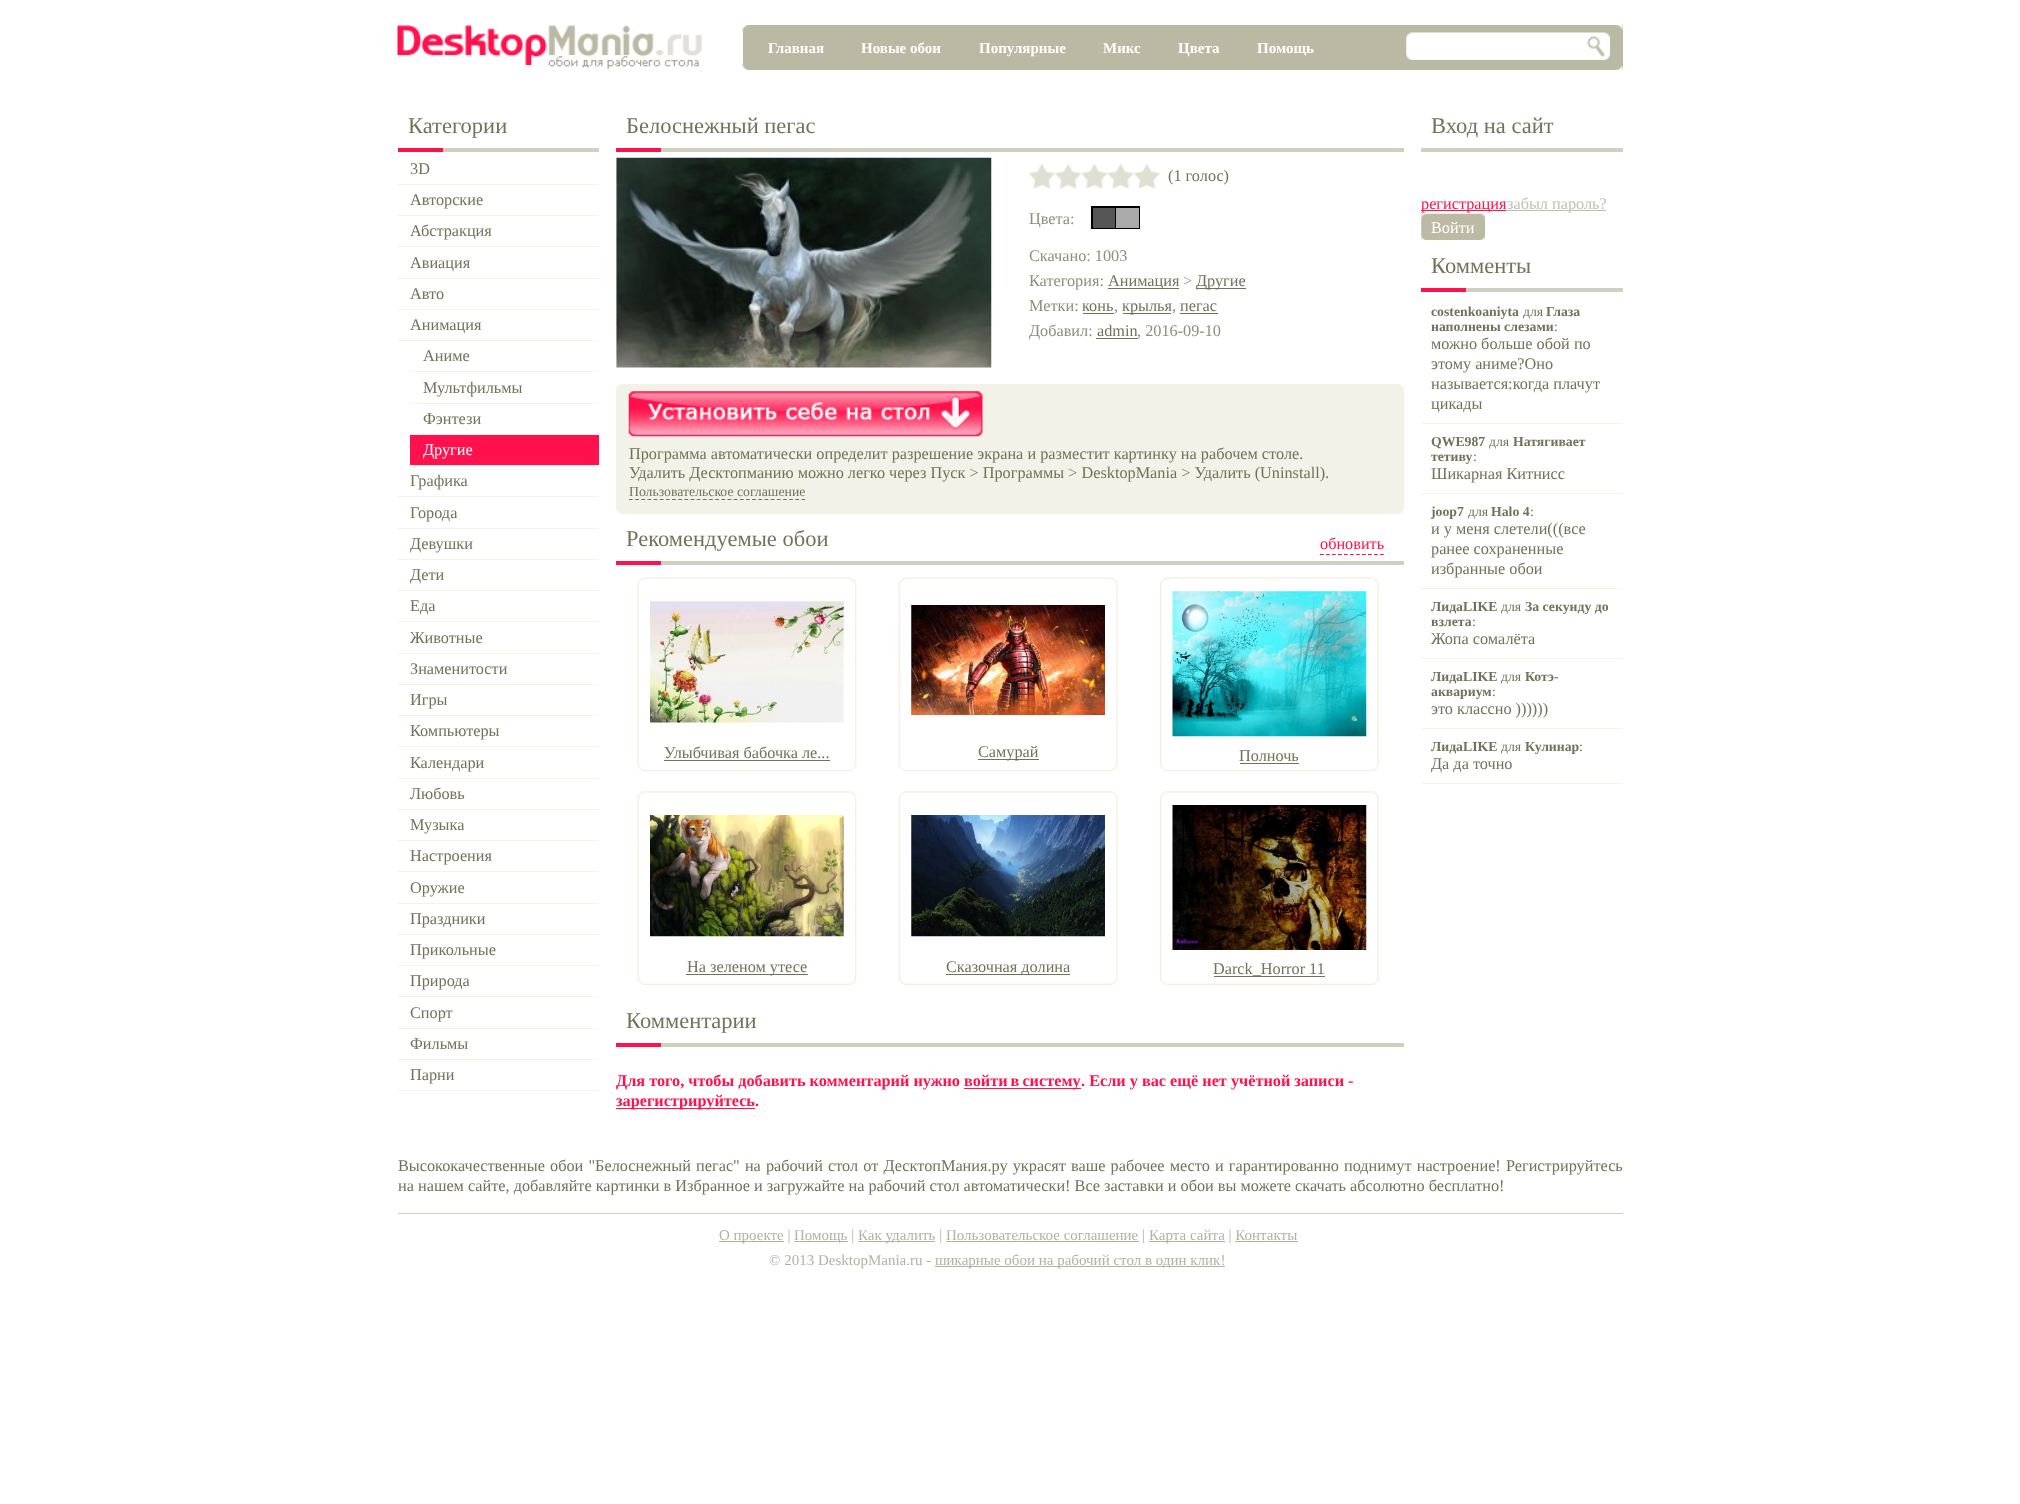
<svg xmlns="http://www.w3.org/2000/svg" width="2020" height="1504">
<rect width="100%" height="100%" fill="#fff"/>
<image x="397" y="25" width="306" height="44" href="media/1.png"/>
<rect x="743" y="25" width="880" height="45" fill="#babaa4"/>
<image x="742" y="25" width="7" height="7" href="media/2.png"/>
<image x="1616" y="25" width="7" height="5" href="media/3.png"/>
<text x="768" y="53" style="font-family:Liberation Serif;font-size:15px;font-weight:bold;fill:#fff">Главная</text>
<text x="861" y="53" style="font-family:Liberation Serif;font-size:15px;font-weight:bold;fill:#fff">Новые обои</text>
<text x="979" y="53" style="font-family:Liberation Serif;font-size:15px;font-weight:bold;fill:#fff">Популярные</text>
<text x="1103" y="53" style="font-family:Liberation Serif;font-size:15px;font-weight:bold;fill:#fff">Микс</text>
<text x="1178" y="53" style="font-family:Liberation Serif;font-size:15px;font-weight:bold;fill:#fff">Цвета</text>
<text x="1257" y="53" style="font-family:Liberation Serif;font-size:15px;font-weight:bold;fill:#fff">Помощь</text>
<image x="1406" y="32" width="204" height="28" href="media/4.png"/>
<rect x="1416" y="39" width="105" height="14" fill="#fff"/>
<image x="742" y="63" width="7" height="7" href="media/5.png"/>
<image x="1616" y="65" width="7" height="5" href="media/6.png"/>
<rect x="443" y="148" width="156" height="4" fill="#d0d0c0"/>
<text x="408" y="133" style="font-family:Liberation Serif;font-size:22.5px;fill:#727258">Категории</text>
<rect x="398" y="148" width="45" height="4" fill="#ff114d"/>
<rect x="398" y="184" width="201" height="1" fill="#f3f3e6"/>
<text x="410" y="174" style="font-family:Liberation Serif;font-size:16.25px;fill:#727258">3D</text>
<rect x="398" y="215" width="201" height="1" fill="#f3f3e6"/>
<text x="410" y="205" style="font-family:Liberation Serif;font-size:16.25px;fill:#727258">Авторские</text>
<rect x="398" y="246" width="201" height="1" fill="#f3f3e6"/>
<text x="410" y="236" style="font-family:Liberation Serif;font-size:16.25px;fill:#727258">Абстракция</text>
<rect x="398" y="278" width="201" height="1" fill="#f3f3e6"/>
<text x="410" y="268" style="font-family:Liberation Serif;font-size:16.25px;fill:#727258">Авиация</text>
<rect x="398" y="309" width="201" height="1" fill="#f3f3e6"/>
<text x="410" y="299" style="font-family:Liberation Serif;font-size:16.25px;fill:#727258">Авто</text>
<rect x="398" y="340" width="201" height="1" fill="#f3f3e6"/>
<text x="410" y="330" style="font-family:Liberation Serif;font-size:16.25px;fill:#727258">Анимация</text>
<rect x="410" y="371" width="189" height="1" fill="#f3f3e6"/>
<text x="423" y="361" style="font-family:Liberation Serif;font-size:16.25px;fill:#727258">Аниме</text>
<rect x="410" y="403" width="189" height="1" fill="#f3f3e6"/>
<text x="423" y="393" style="font-family:Liberation Serif;font-size:16.25px;fill:#727258">Мультфильмы</text>
<rect x="410" y="434" width="189" height="1" fill="#f3f3e6"/>
<text x="423" y="424" style="font-family:Liberation Serif;font-size:16.25px;fill:#727258">Фэнтези</text>
<rect x="410" y="435" width="189" height="30" fill="#ff114d"/>
<rect x="410" y="465" width="189" height="1" fill="#f3f3e6"/>
<text x="423" y="455" style="font-family:Liberation Serif;font-size:16.25px;fill:#fff">Другие</text>
<rect x="398" y="496" width="201" height="1" fill="#f3f3e6"/>
<text x="410" y="486" style="font-family:Liberation Serif;font-size:16.25px;fill:#727258">Графика</text>
<rect x="398" y="528" width="201" height="1" fill="#f3f3e6"/>
<text x="410" y="518" style="font-family:Liberation Serif;font-size:16.25px;fill:#727258">Города</text>
<rect x="398" y="559" width="201" height="1" fill="#f3f3e6"/>
<text x="410" y="549" style="font-family:Liberation Serif;font-size:16.25px;fill:#727258">Девушки</text>
<rect x="398" y="590" width="201" height="1" fill="#f3f3e6"/>
<text x="410" y="580" style="font-family:Liberation Serif;font-size:16.25px;fill:#727258">Дети</text>
<rect x="398" y="621" width="201" height="1" fill="#f3f3e6"/>
<text x="410" y="611" style="font-family:Liberation Serif;font-size:16.25px;fill:#727258">Еда</text>
<rect x="398" y="653" width="201" height="1" fill="#f3f3e6"/>
<text x="410" y="643" style="font-family:Liberation Serif;font-size:16.25px;fill:#727258">Животные</text>
<rect x="398" y="684" width="201" height="1" fill="#f3f3e6"/>
<text x="410" y="674" style="font-family:Liberation Serif;font-size:16.25px;fill:#727258">Знаменитости</text>
<rect x="398" y="715" width="201" height="1" fill="#f3f3e6"/>
<text x="410" y="705" style="font-family:Liberation Serif;font-size:16.25px;fill:#727258">Игры</text>
<rect x="398" y="746" width="201" height="1" fill="#f3f3e6"/>
<text x="410" y="736" style="font-family:Liberation Serif;font-size:16.25px;fill:#727258">Компьютеры</text>
<rect x="398" y="778" width="201" height="1" fill="#f3f3e6"/>
<text x="410" y="768" style="font-family:Liberation Serif;font-size:16.25px;fill:#727258">Календари</text>
<rect x="398" y="809" width="201" height="1" fill="#f3f3e6"/>
<text x="410" y="799" style="font-family:Liberation Serif;font-size:16.25px;fill:#727258">Любовь</text>
<rect x="398" y="840" width="201" height="1" fill="#f3f3e6"/>
<text x="410" y="830" style="font-family:Liberation Serif;font-size:16.25px;fill:#727258">Музыка</text>
<rect x="398" y="871" width="201" height="1" fill="#f3f3e6"/>
<text x="410" y="861" style="font-family:Liberation Serif;font-size:16.25px;fill:#727258">Настроения</text>
<rect x="398" y="903" width="201" height="1" fill="#f3f3e6"/>
<text x="410" y="893" style="font-family:Liberation Serif;font-size:16.25px;fill:#727258">Оружие</text>
<rect x="398" y="934" width="201" height="1" fill="#f3f3e6"/>
<text x="410" y="924" style="font-family:Liberation Serif;font-size:16.25px;fill:#727258">Праздники</text>
<rect x="398" y="965" width="201" height="1" fill="#f3f3e6"/>
<text x="410" y="955" style="font-family:Liberation Serif;font-size:16.25px;fill:#727258">Прикольные</text>
<rect x="398" y="996" width="201" height="1" fill="#f3f3e6"/>
<text x="410" y="986" style="font-family:Liberation Serif;font-size:16.25px;fill:#727258">Природа</text>
<rect x="398" y="1028" width="201" height="1" fill="#f3f3e6"/>
<text x="410" y="1018" style="font-family:Liberation Serif;font-size:16.25px;fill:#727258">Спорт</text>
<rect x="398" y="1059" width="201" height="1" fill="#f3f3e6"/>
<text x="410" y="1049" style="font-family:Liberation Serif;font-size:16.25px;fill:#727258">Фильмы</text>
<rect x="398" y="1090" width="201" height="1" fill="#f3f3e6"/>
<text x="410" y="1080" style="font-family:Liberation Serif;font-size:16.25px;fill:#727258">Парни</text>
<rect x="661" y="148" width="743" height="4" fill="#d0d0c0"/>
<text x="626" y="133" style="font-family:Liberation Serif;font-size:22.5px;fill:#727258">Белоснежный пегас</text>
<rect x="616" y="148" width="45" height="4" fill="#ff114d"/>
<image x="616" y="157" width="376" height="211" href="media/7.png"/>
<image x="1028" y="163" width="132" height="26" href="media/8.png"/>
<text x="1168" y="181" style="font-family:Liberation Serif;font-size:16.25px;fill:#727258">(1 голос)</text>
<text x="1029" y="224" style="font-family:Liberation Serif;font-size:16.25px;fill:#8e8e7d">Цвета:</text>
<rect x="1091" y="206" width="49" height="23" fill="#000"/>
<rect x="1093" y="208" width="22" height="20" fill="#555"/>
<rect x="1116" y="208" width="23" height="20" fill="#aaa"/>
<text x="1029" y="261" style="font-family:Liberation Serif;font-size:16.25px;fill:#8e8e7d">Скачано: 1003</text>
<text x="1029" y="286" style="font-family:Liberation Serif;font-size:16.25px;fill:#8e8e7d">Категория:</text>
<rect x="1108" y="288" width="71" height="1" fill="#727258"/>
<text x="1108" y="286" style="font-family:Liberation Serif;font-size:16.25px;fill:#727258">Анимация</text>
<text x="1183" y="286" style="font-family:Liberation Serif;font-size:16.25px;fill:#8e8e7d">&gt;</text>
<rect x="1196" y="288" width="50" height="1" fill="#727258"/>
<text x="1196" y="286" style="font-family:Liberation Serif;font-size:16.25px;fill:#727258">Другие</text>
<text x="1029" y="311" style="font-family:Liberation Serif;font-size:16.25px;fill:#8e8e7d">Метки:</text>
<text x="1082" y="311" style="font-family:Liberation Serif;font-size:16.25px;fill:#727258">конь</text>
<rect x="1083" y="313" width="31" height="1" fill="#727258"/>
<text x="1114" y="311" style="font-family:Liberation Serif;font-size:16.25px;fill:#8e8e7d">,</text>
<rect x="1123" y="313" width="48" height="1" fill="#727258"/>
<text x="1122" y="311" style="font-family:Liberation Serif;font-size:16.25px;fill:#727258">крылья</text>
<text x="1172" y="311" style="font-family:Liberation Serif;font-size:16.25px;fill:#8e8e7d">,</text>
<text x="1180" y="311" style="font-family:Liberation Serif;font-size:16.25px;fill:#727258">пегас</text>
<rect x="1180" y="313" width="38" height="1" fill="#727258"/>
<text x="1029" y="336" style="font-family:Liberation Serif;font-size:16.25px;fill:#8e8e7d">Добавил:</text>
<text x="1097" y="336" style="font-family:Liberation Serif;font-size:16.25px;fill:#727258">admin</text>
<rect x="1096" y="338" width="42" height="1" fill="#727258"/>
<text x="1137" y="336" style="font-family:Liberation Serif;font-size:16.25px;fill:#8e8e7d">, 2016-09-10</text>
<rect x="616" y="384" width="788" height="130" fill="#f2f2e8"/>
<image x="616" y="383" width="5" height="5" href="media/9.png"/>
<image x="1399" y="384" width="5" height="5" href="media/10.png"/>
<image x="628" y="391" width="355" height="46" href="media/11.png"/>
<text x="629" y="459" style="font-family:Liberation Serif;font-size:16.25px;fill:#727258">Программа автоматически определит разрешение экрана и разместит картинку на рабочем столе.</text>
<text x="629" y="478" style="font-family:Liberation Serif;font-size:16.25px;fill:#727258">Удалить Десктопманию можно легко через Пуск &gt; Программы &gt; DesktopMania &gt; Удалить (Uninstall).</text>
<text x="629" y="496" style="font-family:Liberation Serif;font-size:13.75px;fill:#727258">Пользовательское соглашение</text>
<path d="M629 499.5h176" fill="none" stroke="#727258" stroke-width="1.2" stroke-dasharray="3.75 2.41"/>
<image x="616" y="509" width="5" height="5" href="media/12.png"/>
<image x="1399" y="509" width="5" height="5" href="media/13.png"/>
<rect x="661" y="561" width="743" height="4" fill="#d0d0c0"/>
<text x="626" y="546" style="font-family:Liberation Serif;font-size:22.5px;fill:#727258">Рекомендуемые обои</text>
<path d="M1320 554.5h64" fill="none" stroke="#fb114d" stroke-width="1.2" stroke-dasharray="3.75 2.25"/>
<text x="1320" y="549" style="font-family:Liberation Serif;font-size:16.25px;fill:#ff114d">обновить</text>
<rect x="616" y="561" width="45" height="4" fill="#ff114d"/>
<image x="637" y="577" width="220" height="195" href="media/14.png"/>
<image x="650" y="601" width="194" height="122" href="media/15.png"/>
<text x="664" y="758" style="font-family:Liberation Serif;font-size:16.25px;fill:#727258">Улыбчивая бабочка ле...</text>
<rect x="664" y="760" width="166" height="1" fill="#727258"/>
<image x="898" y="577" width="220" height="195" href="media/16.png"/>
<image x="911" y="605" width="194" height="110" href="media/17.png"/>
<rect x="978" y="759" width="61" height="1" fill="#727258"/>
<text x="978" y="757" style="font-family:Liberation Serif;font-size:16.25px;fill:#727258">Самурай</text>
<image x="1160" y="577" width="219" height="195" href="media/18.png"/>
<image x="1172" y="591" width="195" height="146" href="media/19.png"/>
<text x="1239" y="761" style="font-family:Liberation Serif;font-size:16.25px;fill:#727258">Полночь</text>
<rect x="1240" y="763" width="59" height="1" fill="#727258"/>
<image x="637" y="791" width="220" height="194" href="media/20.png"/>
<image x="650" y="815" width="194" height="122" href="media/21.png"/>
<rect x="686" y="974" width="122" height="1" fill="#727258"/>
<text x="687" y="972" style="font-family:Liberation Serif;font-size:16.25px;fill:#727258">На зеленом утесе</text>
<image x="898" y="791" width="220" height="194" href="media/22.png"/>
<image x="911" y="815" width="194" height="122" href="media/23.png"/>
<rect x="946" y="974" width="124" height="1" fill="#727258"/>
<text x="946" y="972" style="font-family:Liberation Serif;font-size:16.25px;fill:#727258">Сказочная долина</text>
<image x="1160" y="791" width="219" height="194" href="media/24.png"/>
<image x="1172" y="805" width="195" height="145" href="media/25.png"/>
<rect x="1214" y="976" width="111" height="1" fill="#727258"/>
<text x="1213" y="974" style="font-family:Liberation Serif;font-size:16.25px;fill:#727258">Darck_Horror 11</text>
<rect x="661" y="1043" width="743" height="4" fill="#d0d0c0"/>
<text x="626" y="1028" style="font-family:Liberation Serif;font-size:22.5px;fill:#727258">Комментарии</text>
<rect x="616" y="1043" width="45" height="4" fill="#ff114d"/>
<text x="616" y="1086" style="font-family:Liberation Serif;font-size:16.25px;font-weight:bold;fill:#ff114d">Для того, чтобы добавить комментарий нужно</text>
<rect x="964" y="1088" width="117" height="1" fill="#ff114d"/>
<text x="964" y="1086" word-spacing="-1" style="font-family:Liberation Serif;font-size:16.25px;font-weight:bold;fill:#ff114d">войти в систему</text>
<text x="1081" y="1086" style="font-family:Liberation Serif;font-size:16.25px;font-weight:bold;fill:#ff114d">. Если у вас ещё нет учётной записи -</text>
<rect x="616" y="1108" width="139" height="1" fill="#ff114d"/>
<text x="616" y="1106" style="font-family:Liberation Serif;font-size:16.25px;font-weight:bold;fill:#ff114d">зарегистрируйтесь.</text>
<rect x="1421" y="148" width="202" height="4" fill="#d0d0c0"/>
<text x="1431" y="133" style="font-family:Liberation Serif;font-size:22.5px;fill:#727258">Вход на сайт</text>
<rect x="1421" y="210" width="85" height="1" fill="#ff114d"/>
<text x="1421" y="209" style="font-family:Liberation Serif;font-size:16.25px;fill:#ff114d">регистрация</text>
<rect x="1506" y="210" width="100" height="1" fill="#c0c0b5"/>
<text x="1507" y="209" style="font-family:Liberation Serif;font-size:16.25px;fill:#c0c0b5">забыл пароль?</text>
<image x="1421" y="213" width="64" height="27" href="media/26.png"/>
<image x="1480" y="213" width="5" height="27" href="media/27.png"/>
<text x="1431" y="233" style="font-family:Liberation Serif;font-size:16.25px;fill:#fff">Войти</text>
<rect x="1466" y="288" width="157" height="4" fill="#d0d0c0"/>
<text x="1431" y="273" style="font-family:Liberation Serif;font-size:22.5px;fill:#727258">Комменты</text>
<rect x="1421" y="288" width="45" height="4" fill="#ff114d"/>
<rect x="1421" y="423" width="202" height="1" fill="#f3f3e6"/>
<text x="1431" y="316" style="font-family:Liberation Serif;font-size:13.75px;font-weight:bold;fill:#727258">costenkoaniyta</text>
<text x="1523" y="316" style="font-family:Liberation Serif;font-size:13.75px;fill:#727258">для</text>
<text x="1546" y="316" style="font-family:Liberation Serif;font-size:13.75px;font-weight:bold;fill:#727258">Глаза</text>
<text x="1431" y="331" style="font-family:Liberation Serif;font-size:13.75px;font-weight:bold;fill:#727258">наполнены слезами</text>
<text x="1554" y="331" style="font-family:Liberation Serif;font-size:13.75px;fill:#727258">:</text>
<text x="1431" y="349" style="font-family:Liberation Serif;font-size:16.25px;fill:#727258">можно больше обой по</text>
<text x="1431" y="369" style="font-family:Liberation Serif;font-size:16.25px;fill:#727258">этому аниме?Оно</text>
<text x="1431" y="389" style="font-family:Liberation Serif;font-size:16.25px;fill:#727258">называется:когда плачут</text>
<text x="1431" y="409" style="font-family:Liberation Serif;font-size:16.25px;fill:#727258">цикады</text>
<rect x="1421" y="493" width="202" height="1" fill="#f3f3e6"/>
<text x="1431" y="446" style="font-family:Liberation Serif;font-size:13.75px;font-weight:bold;fill:#727258">QWE987</text>
<text x="1489" y="446" style="font-family:Liberation Serif;font-size:13.75px;fill:#727258">для</text>
<text x="1513" y="446" style="font-family:Liberation Serif;font-size:13.75px;font-weight:bold;fill:#727258">Натягивает</text>
<text x="1431" y="461" style="font-family:Liberation Serif;font-size:13.75px;font-weight:bold;fill:#727258">тетиву</text>
<text x="1473" y="461" style="font-family:Liberation Serif;font-size:13.75px;fill:#727258">:</text>
<text x="1431" y="479" style="font-family:Liberation Serif;font-size:16.25px;fill:#727258">Шикарная Китнисс</text>
<rect x="1421" y="588" width="202" height="1" fill="#f3f3e6"/>
<text x="1431" y="516" style="font-family:Liberation Serif;font-size:13.75px;font-weight:bold;fill:#727258">joop7</text>
<text x="1468" y="516" style="font-family:Liberation Serif;font-size:13.75px;fill:#727258">для</text>
<text x="1491" y="516" style="font-family:Liberation Serif;font-size:13.75px;font-weight:bold;fill:#727258">Halo 4</text>
<text x="1530" y="516" style="font-family:Liberation Serif;font-size:13.75px;fill:#727258">:</text>
<text x="1431" y="534" style="font-family:Liberation Serif;font-size:16.25px;fill:#727258">и у меня слетели(((все</text>
<text x="1431" y="554" style="font-family:Liberation Serif;font-size:16.25px;fill:#727258">ранее сохраненные</text>
<text x="1431" y="574" style="font-family:Liberation Serif;font-size:16.25px;fill:#727258">избранные обои</text>
<rect x="1421" y="658" width="202" height="1" fill="#f3f3e6"/>
<text x="1431" y="611" style="font-family:Liberation Serif;font-size:13.75px;font-weight:bold;fill:#727258">ЛидаLIKE</text>
<text x="1501" y="611" style="font-family:Liberation Serif;font-size:13.75px;fill:#727258">для</text>
<text x="1525" y="611" style="font-family:Liberation Serif;font-size:13.75px;font-weight:bold;fill:#727258">За секунду до</text>
<text x="1431" y="626" style="font-family:Liberation Serif;font-size:13.75px;font-weight:bold;fill:#727258">взлета</text>
<text x="1472" y="626" style="font-family:Liberation Serif;font-size:13.75px;fill:#727258">:</text>
<text x="1431" y="644" style="font-family:Liberation Serif;font-size:16.25px;fill:#727258">Жопа сомалёта</text>
<rect x="1421" y="728" width="202" height="1" fill="#f3f3e6"/>
<text x="1431" y="681" style="font-family:Liberation Serif;font-size:13.75px;font-weight:bold;fill:#727258">ЛидаLIKE</text>
<text x="1501" y="681" style="font-family:Liberation Serif;font-size:13.75px;fill:#727258">для</text>
<text x="1525" y="681" style="font-family:Liberation Serif;font-size:13.75px;font-weight:bold;fill:#727258">Котэ-</text>
<text x="1431" y="696" style="font-family:Liberation Serif;font-size:13.75px;font-weight:bold;fill:#727258">аквариум</text>
<text x="1492" y="696" style="font-family:Liberation Serif;font-size:13.75px;fill:#727258">:</text>
<text x="1431" y="714" style="font-family:Liberation Serif;font-size:16.25px;fill:#727258">это классно ))))))</text>
<rect x="1421" y="783" width="202" height="1" fill="#f3f3e6"/>
<text x="1431" y="751" style="font-family:Liberation Serif;font-size:13.75px;font-weight:bold;fill:#727258">ЛидаLIKE</text>
<text x="1501" y="751" style="font-family:Liberation Serif;font-size:13.75px;fill:#727258">для</text>
<text x="1525" y="751" style="font-family:Liberation Serif;font-size:13.75px;font-weight:bold;fill:#727258">Кулинар</text>
<text x="1579" y="751" style="font-family:Liberation Serif;font-size:13.75px;fill:#727258">:</text>
<text x="1431" y="769" style="font-family:Liberation Serif;font-size:16.25px;fill:#727258">Да да точно</text>
<text x="398" y="1171" word-spacing="1.1" style="font-family:Liberation Serif;font-size:16.25px;fill:#727258">Высококачественные обои "Белоснежный пегас" на рабочий стол от ДесктопМания.ру украсят ваше рабочее место и гарантированно</text>
<text x="1344" y="1171" word-spacing="1.1" style="font-family:Liberation Serif;font-size:16.25px;fill:#727258">поднимут настроение! Регистрируйтесь</text>
<text x="398" y="1191" style="font-family:Liberation Serif;font-size:16.25px;fill:#727258">на нашем сайте, добавляйте картинки в Избранное и загружайте на рабочий стол автоматически! Все заставки и обои вы можете скачать абсолютно бесплатно!</text>
<rect x="398" y="1213" width="1225" height="1" fill="#cfcfbf"/>
<rect x="719" y="1241" width="65" height="1" fill="#b2b2a3"/>
<text x="719" y="1240" style="font-family:Liberation Serif;font-size:15px;fill:#b2b2a3">О проекте |</text>
<rect x="794" y="1241" width="54" height="1" fill="#b2b2a3"/>
<text x="794" y="1240" style="font-family:Liberation Serif;font-size:15px;fill:#b2b2a3">Помощь |</text>
<rect x="858" y="1241" width="77" height="1" fill="#b2b2a3"/>
<text x="858" y="1240" style="font-family:Liberation Serif;font-size:15px;fill:#b2b2a3">Как удалить | Пользовательское соглашение |</text>
<rect x="1149" y="1241" width="76" height="1" fill="#b2b2a3"/>
<text x="1149" y="1240" style="font-family:Liberation Serif;font-size:15px;fill:#b2b2a3">Карта сайта | Контакты</text>
<rect x="946" y="1241" width="193" height="1" fill="#b2b2a3"/>
<rect x="1235" y="1241" width="63" height="1" fill="#b2b2a3"/>
<text x="769" y="1265" style="font-family:Liberation Serif;font-size:15px;fill:#b2b2a3">© 2013 DesktopMania.ru -</text>
<rect x="935" y="1266" width="290" height="1" fill="#b2b2a3"/>
<text x="935" y="1265" style="font-family:Liberation Serif;font-size:15px;fill:#b2b2a3">шикарные обои на рабочий стол в один клик!</text>
</svg>
